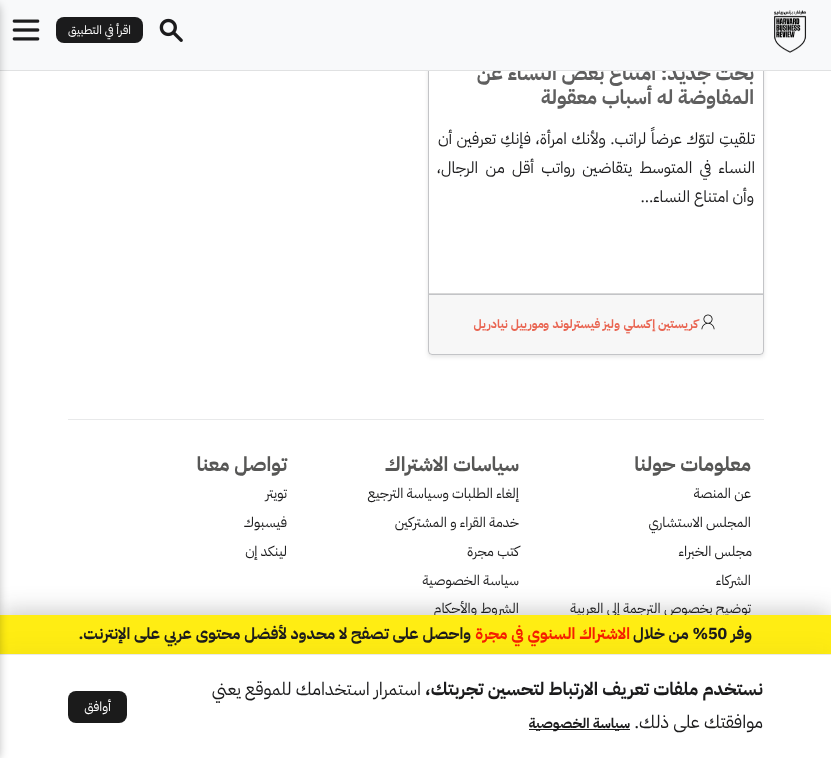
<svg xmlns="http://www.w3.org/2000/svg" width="831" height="758">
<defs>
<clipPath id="clip1"><path d="M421 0h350v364h-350zm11-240h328c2 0 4 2 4 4v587c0 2-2 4-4 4h-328c-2 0-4-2-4-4v-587c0-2 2-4 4-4z" clip-rule="evenodd"/></clipPath>
</defs>
<rect width="100%" height="100%" fill="#fff"/>
<g clip-path="url(#clip1)">
<rect x="428" y="-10" width="336" height="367" rx="4" fill="#0000001a" filter="blur(2px)"/>
</g>
<rect x="428.5" y="-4.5" width="335" height="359" rx="3.5" fill="none" stroke="#c3c4c7"/>
<text x="754" y="80" style="font-family:IBM Plex Sans Arabic;font-size:20px;font-weight:bold;direction:rtl;fill:#5f5f5f">بحث جديد: امتناع بعض النساء عن</text>
<rect width="831" height="70" fill="#f8f9fa"/>
<rect y="70" width="831" height="1" fill="#e0e1e2"/>
<image x="774" y="10" width="33" height="43" href="media/1.png"/>
<image x="159" y="18" width="24" height="24" href="media/2.png"/>
<rect x="56" y="17" width="87" height="26" rx="8" fill="#1b1b1c"/>
<text x="131" y="34" style="font-family:IBM Plex Sans Arabic;font-size:12px;direction:rtl;fill:#fff">اقرأ في التطبيق</text>
<image x="12" y="19" width="28" height="22" href="media/3.png"/>
<text x="751" y="613" style="font-family:IBM Plex Sans Arabic;font-size:14px;direction:rtl;fill:#1b1b1c">توضيح بخصوص الترجمة إلى العربية</text>
<text x="519" y="613" style="font-family:IBM Plex Sans Arabic;font-size:14px;direction:rtl;fill:#1b1b1c">الشروط والأحكام</text>
<rect y="612" width="831" height="39" fill="#1b1b1c40" filter="blur(12px)"/>
<rect y="615" width="831" height="39" fill="#ffed13"/>
<rect y="652" width="831" height="104" fill="#1b1b1c0f" filter="blur(12px)"/>
<rect y="655" width="831" height="103" fill="#fff"/>
<rect y="654" width="831" height="1" fill="#e8e9ea"/>
<rect x="-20" y="3" width="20" height="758" rx="8" fill="#0000003d" filter="blur(4px)"/>
<text x="754" y="104" style="font-family:IBM Plex Sans Arabic;font-size:20px;font-weight:bold;direction:rtl;fill:#5f5f5f">المفاوضة له أسباب معقولة</text>
<text x="755" y="144" word-spacing="0.75" style="font-family:IBM Plex Sans Arabic;font-size:16px;direction:rtl;fill:#1b1b1c">تلقيتِ لتوّك عرضاً لراتب. ولأنك امرأة، فإنكِ تعرفين أن</text>
<text x="755" y="173" word-spacing="3.5" style="font-family:IBM Plex Sans Arabic;font-size:16px;direction:rtl;fill:#1b1b1c">النساء في المتوسط يتقاضين رواتب أقل من الرجال،</text>
<text x="754" y="202" style="font-family:IBM Plex Sans Arabic;font-size:16px;direction:rtl;fill:#1b1b1c">وأن امتناع النساء…</text>
<rect x="429" y="295" width="334" height="59" fill="#00000008"/>
<rect x="429" y="293" width="334" height="1" fill="#d8d8d8"/>
<rect x="429" y="294" width="334" height="1" fill="#c3c4c7"/>
<image x="701" y="314" width="14" height="16" href="media/4.png"/>
<text x="698" y="328" style="font-family:IBM Plex Sans Arabic;font-size:12px;font-weight:bold;direction:rtl;fill:#e96552">كريستين إكسلي</text>
<text x="620" y="328" style="font-family:IBM Plex Sans Arabic;font-size:12px;font-weight:bold;direction:rtl;fill:#e96552">و</text>
<text x="614" y="328" style="font-family:IBM Plex Sans Arabic;font-size:12px;font-weight:bold;direction:rtl;fill:#e96552">ليز فيسترلوند</text>
<text x="549" y="328" style="font-family:IBM Plex Sans Arabic;font-size:12px;font-weight:bold;direction:rtl;fill:#e96552">و</text>
<text x="544" y="328" style="font-family:IBM Plex Sans Arabic;font-size:12px;font-weight:bold;direction:rtl;fill:#e96552">مورييل نيادريل</text>
<rect x="68" y="419" width="696" height="1" fill="#e8e9ea"/>
<text x="751" y="471" style="font-family:IBM Plex Sans Arabic;font-size:20px;font-weight:bold;direction:rtl;fill:#575756">معلومات حولنا</text>
<text x="751" y="498" style="font-family:IBM Plex Sans Arabic;font-size:14px;direction:rtl;fill:#1b1b1c">عن المنصة</text>
<text x="751" y="527" style="font-family:IBM Plex Sans Arabic;font-size:14px;direction:rtl;fill:#1b1b1c">المجلس الاستشاري</text>
<text x="752" y="556" style="font-family:IBM Plex Sans Arabic;font-size:14px;direction:rtl;fill:#1b1b1c">مجلس الخبراء</text>
<text x="751" y="585" style="font-family:IBM Plex Sans Arabic;font-size:14px;direction:rtl;fill:#1b1b1c">الشركاء</text>
<text x="519" y="471" style="font-family:IBM Plex Sans Arabic;font-size:20px;font-weight:bold;direction:rtl;fill:#575756">سياسات الاشتراك</text>
<text x="519" y="498" style="font-family:IBM Plex Sans Arabic;font-size:14px;direction:rtl;fill:#1b1b1c">إلغاء الطلبات وسياسة الترجيع</text>
<text x="519" y="527" style="font-family:IBM Plex Sans Arabic;font-size:14px;direction:rtl;fill:#1b1b1c">خدمة القراء و المشتركين</text>
<text x="519" y="556" style="font-family:IBM Plex Sans Arabic;font-size:14px;direction:rtl;fill:#1b1b1c">كتب مجرة</text>
<text x="519" y="585" style="font-family:IBM Plex Sans Arabic;font-size:14px;direction:rtl;fill:#1b1b1c">سياسة الخصوصية</text>
<text x="287" y="471" style="font-family:IBM Plex Sans Arabic;font-size:20px;font-weight:bold;direction:rtl;fill:#575756">تواصل معنا</text>
<text x="287" y="498" style="font-family:IBM Plex Sans Arabic;font-size:14px;direction:rtl;fill:#1b1b1c">تويتر</text>
<text x="287" y="527" style="font-family:IBM Plex Sans Arabic;font-size:14px;direction:rtl;fill:#1b1b1c">فيسبوك</text>
<text x="287" y="556" style="font-family:IBM Plex Sans Arabic;font-size:14px;direction:rtl;fill:#1b1b1c">لينكد إن</text>
<text x="752" y="639" style="font-family:IBM Plex Sans Arabic;font-size:16px;font-weight:bold;direction:rtl;fill:#1b1b1c">وفر</text>
<text x="708" y="639" style="font-family:IBM Plex Sans Arabic;font-size:16px;font-weight:bold;fill:#1b1b1c">50</text>
<text x="708" y="639" style="font-family:IBM Plex Sans Arabic;font-size:16px;font-weight:bold;direction:rtl;fill:#1b1b1c">% من خلال</text>
<text x="630" y="639" style="font-family:IBM Plex Sans Arabic;font-size:16px;font-weight:bold;direction:rtl;fill:#f51e00">الاشتراك السنوي في مجرة</text>
<text x="471" y="639" style="font-family:IBM Plex Sans Arabic;font-size:16px;font-weight:bold;direction:rtl;fill:#1b1b1c">واحصل على تصفح لا محدود لأفضل محتوى عربي على الإنترنت.</text>
<text x="763" y="695" style="font-family:IBM Plex Sans Arabic;font-size:18px;font-weight:bold;direction:rtl;fill:#1b1b1c">نستخدم ملفات تعريف الارتباط لتحسين تجربتك،</text>
<text x="421" y="695" style="font-family:IBM Plex Sans Arabic;font-size:18px;direction:rtl;fill:#1b1b1c">استمرار استخدامك للموقع يعني</text>
<text x="763" y="728" style="font-family:IBM Plex Sans Arabic;font-size:18px;direction:rtl;fill:#1b1b1c">موافقتك على ذلك.</text>
<rect x="529" y="729" width="101" height="1" fill="#1b1b1b"/>
<text x="630" y="728" style="font-family:IBM Plex Sans Arabic;font-size:14px;font-weight:bold;direction:rtl;fill:#1b1b1c">سياسة الخصوصية</text>
<rect x="68" y="691" width="59" height="32" rx="8" fill="#1b1b1b"/>
<text x="111" y="711" style="font-family:IBM Plex Sans Arabic;font-size:13px;direction:rtl;fill:#fff">أوافق</text>
</svg>
